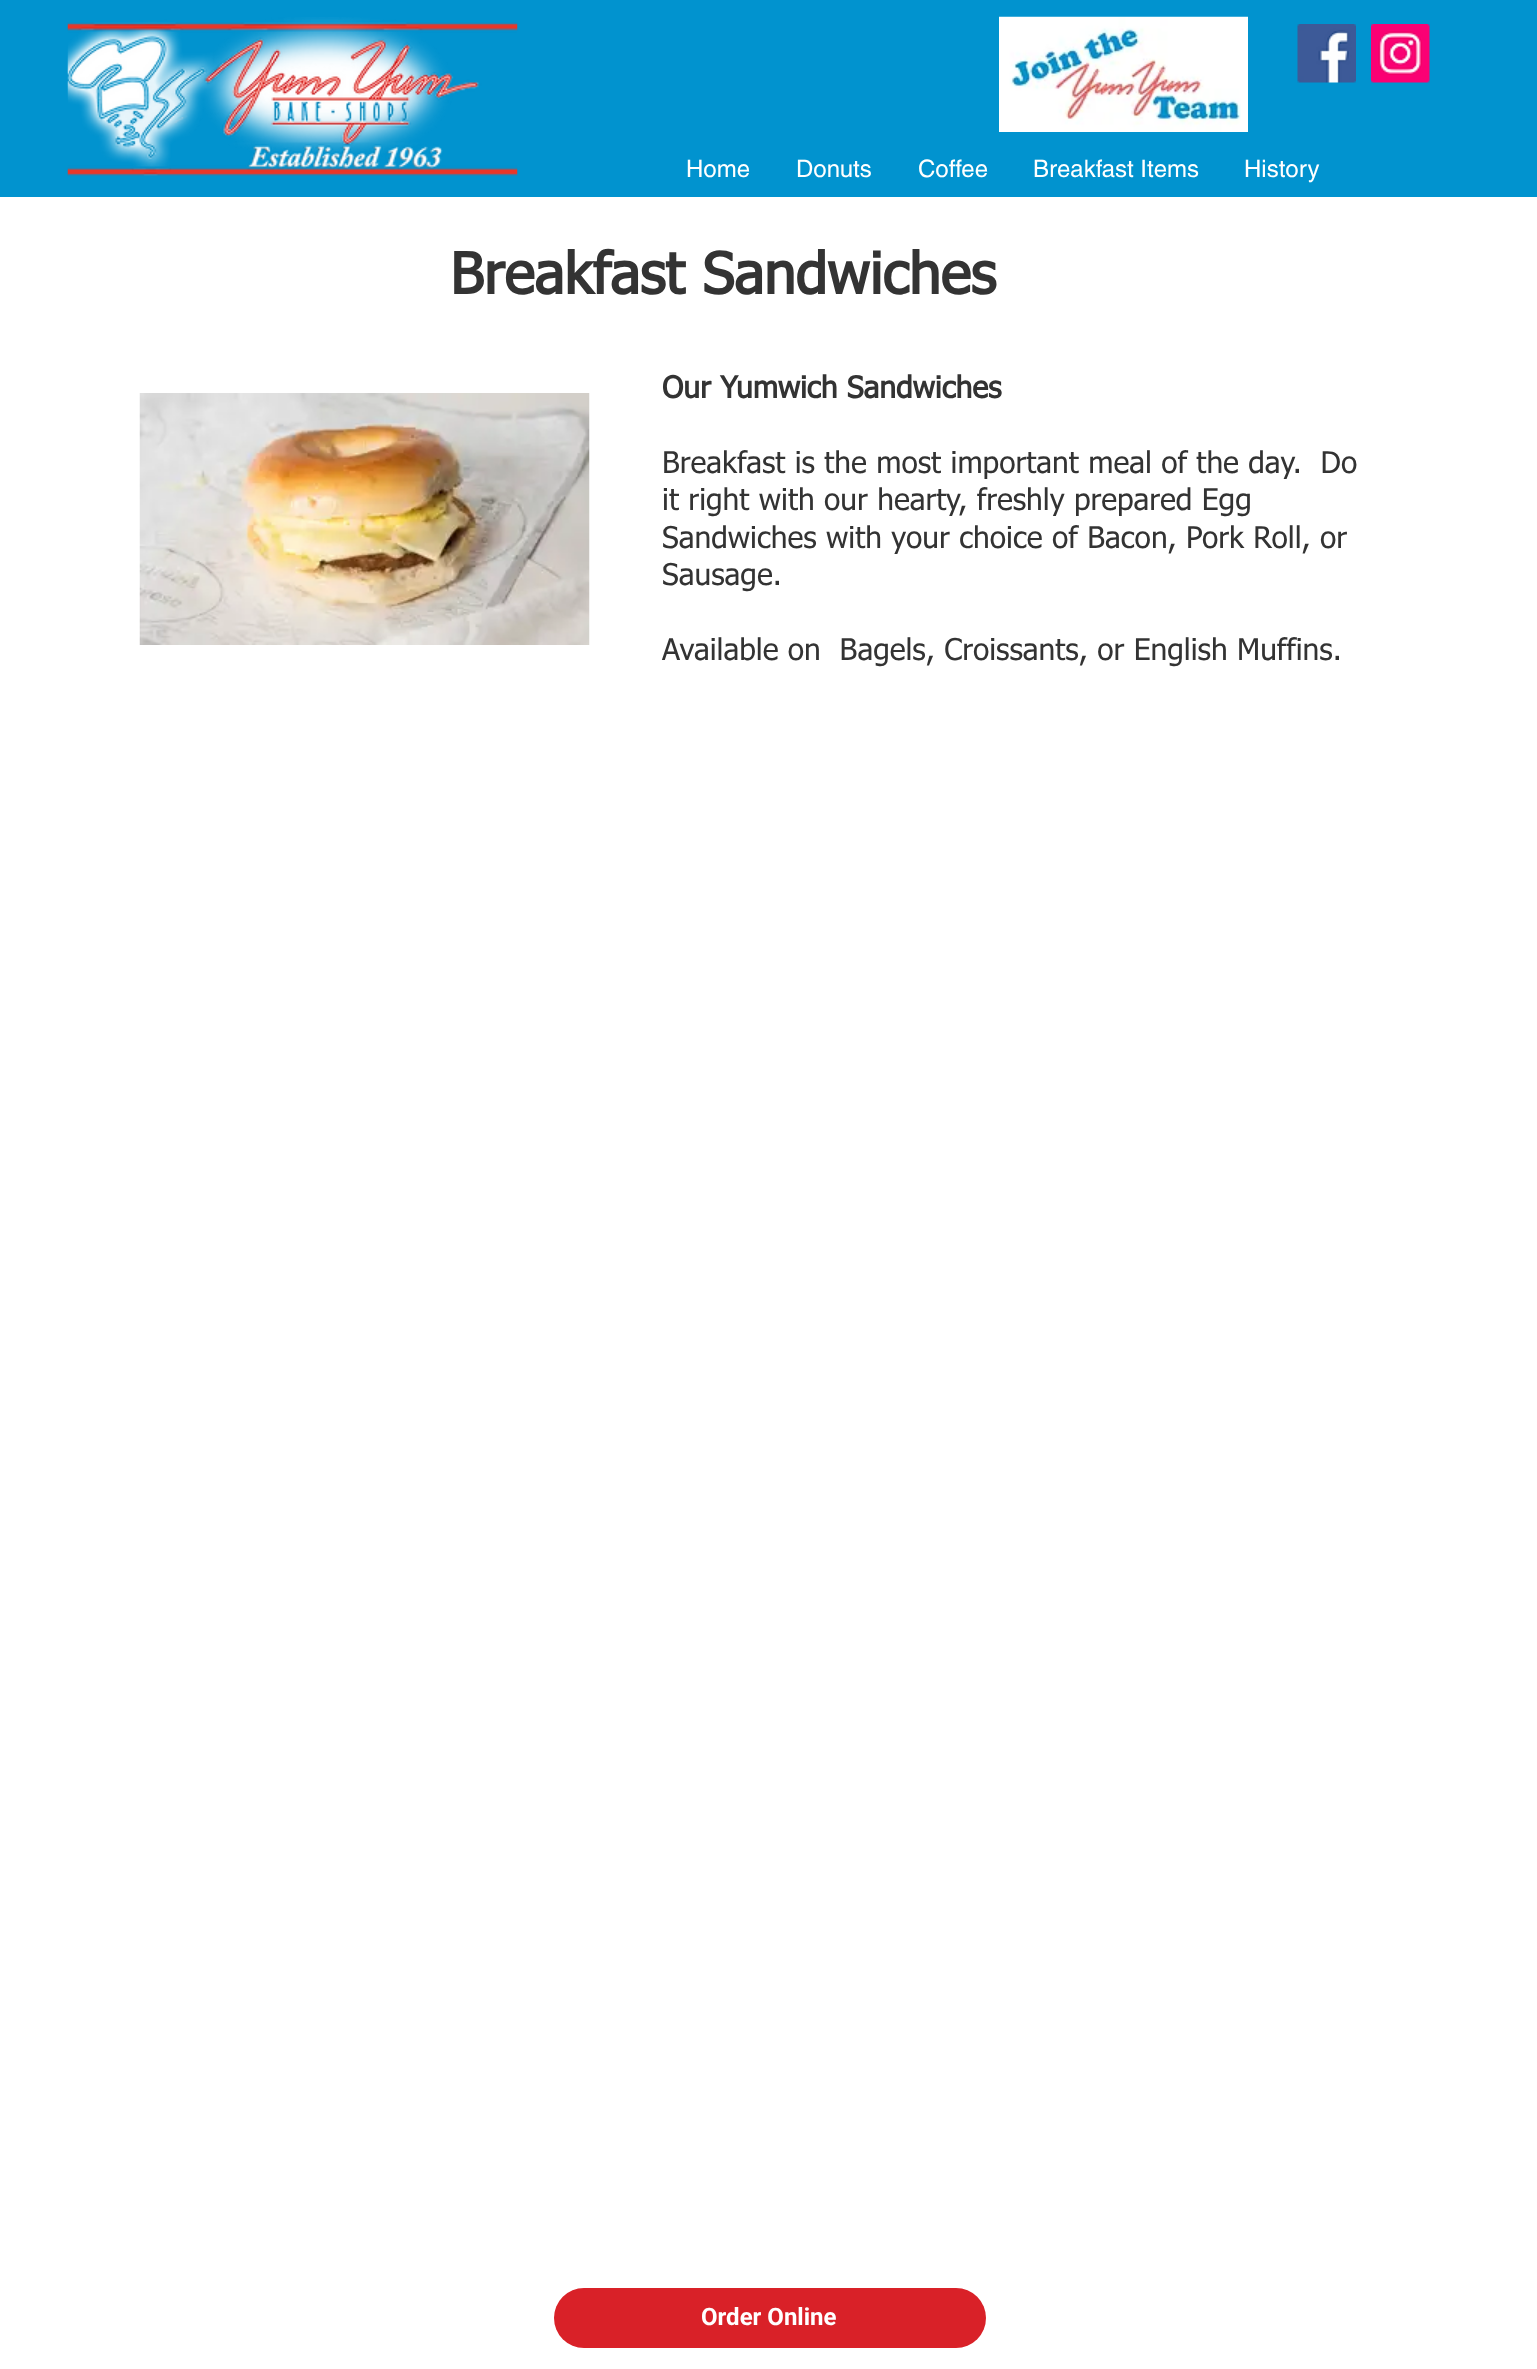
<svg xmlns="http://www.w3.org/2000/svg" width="1537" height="2369">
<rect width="100%" height="100%" fill="#fff"/>
<rect width="1537" height="197" fill="#0193cf"/>
<image x="67" y="17" width="451" height="159" href="media/1.png"/>
<image x="999" y="16" width="249" height="116" href="media/2.png"/>
<image x="1297" y="24" width="59" height="59" href="media/3.png"/>
<image x="1371" y="24" width="59" height="59" href="media/4.png"/>
<text x="686" y="177" style="font-family:helvetica;font-size:24px;fill:#fff">Home</text>
<text x="796" y="177" style="font-family:helvetica;font-size:24px;fill:#fff">Donuts</text>
<text x="918" y="177" style="font-family:helvetica;font-size:24px;fill:#fff">Coffee</text>
<text x="1033" y="177" style="font-family:helvetica;font-size:24px;fill:#fff">Breakfast Items</text>
<text x="1244" y="177" style="font-family:helvetica;font-size:24px;fill:#fff">History</text>
<text x="450" y="294" style="font-family:tahoma;font-size:57px;font-weight:bold;fill:#333">Breakfast Sandwiches</text>
<image x="139" y="393" width="451" height="252" href="media/5.png"/>
<text x="662" y="398" style="font-family:tahoma;font-size:30px;font-weight:bold;fill:#333">Our Yumwich Sandwiches</text>
<text x="662" y="473" style="font-family:tahoma;font-size:30px;fill:#333" xml:space="preserve">Breakfast is the most important meal of the day.  Do</text>
<text x="662" y="510" style="font-family:tahoma;font-size:30px;fill:#333">it right with our hearty, freshly prepared Egg</text>
<text x="662" y="548" style="font-family:tahoma;font-size:30px;fill:#333">Sandwiches with your choice of Bacon, Pork Roll, or</text>
<text x="662" y="585" style="font-family:tahoma;font-size:30px;fill:#333">Sausage.</text>
<text x="662" y="660" style="font-family:tahoma;font-size:30px;fill:#333" xml:space="preserve">Available on  Bagels, Croissants, or English Muffins.</text>
<rect x="554" y="2288" width="432" height="60" rx="30" fill="#d92128"/>
<text x="701" y="2325" style="font-family:Roboto;font-size:24px;font-weight:bold;fill:#fff">Order Online</text>
</svg>
